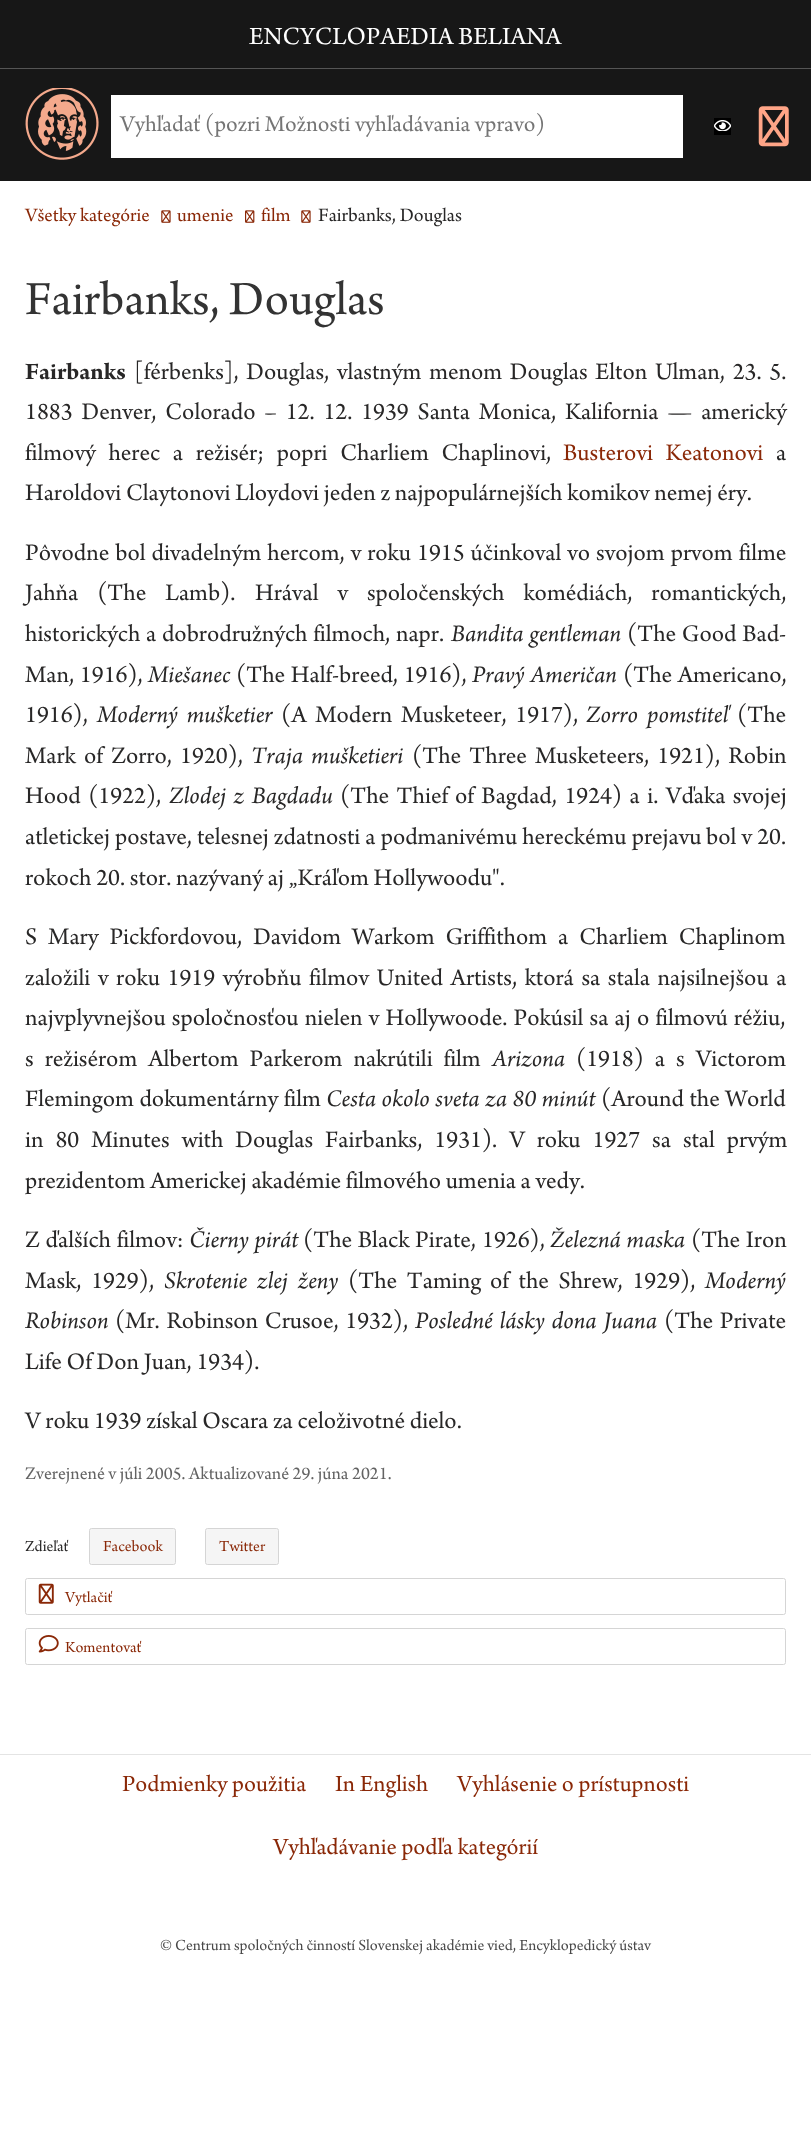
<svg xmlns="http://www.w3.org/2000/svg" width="811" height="2129">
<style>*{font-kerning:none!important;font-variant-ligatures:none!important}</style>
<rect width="100%" height="100%" fill="#fff"/>
<rect width="811" height="181" fill="#171717"/>
<rect y="68" width="811" height="1" fill="#555"/>
<text x="249" y="44" style="font-family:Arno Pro;font-size:26px;fill:#fff">ENCYCLOPAEDIA BELIANA</text>
<image x="25" y="88" width="74" height="72" href="media/1.png"/>
<rect x="111" y="95" width="572" height="63" fill="#fff"/>
<text x="120" y="131" style="font-family:Arno Pro;font-size:23.75px;fill:#757575">Vyhľadať (pozri Možnosti vyhľadávania vpravo)</text>
<rect x="714" y="118" width="17" height="17" fill="#000"/>
<image x="714" y="120" width="17" height="11" href="media/2.png"/>
<image x="758" y="106" width="31" height="41" href="media/3.png"/>
<text x="25" y="221" style="font-family:Arno Pro;font-size:20px;fill:#8a2807">Všetky kategórie</text>
<image x="161" y="210" width="10" height="13" href="media/4.png"/>
<text x="177" y="221" style="font-family:Arno Pro;font-size:20px;fill:#8a2807">umenie</text>
<image x="245" y="210" width="10" height="13" href="media/5.png"/>
<text x="261" y="221" style="font-family:Arno Pro;font-size:20px;fill:#8a2807">film</text>
<image x="301" y="210" width="10" height="13" href="media/4.png"/>
<text x="318" y="221" style="font-family:Arno Pro;font-size:20px;fill:#282727">Fairbanks, Douglas</text>
<text x="25" y="314" style="font-family:Arno Pro;font-size:50px;fill:#333">Fairbanks, Douglas</text>
<text x="25" y="379" style="font-family:Arno Pro;font-size:25px;font-weight:bold;fill:#282727">Fairbanks</text>
<text x="134" y="379" word-spacing="3" style="font-family:Arno Pro;font-size:25px;fill:#282727">[férbenks], Douglas, vlastným menom Douglas Elton Ulman, 23. 5.</text>
<text x="25" y="419" word-spacing="4.1" style="font-family:Arno Pro;font-size:25px;fill:#282727">1883 Denver, Colorado – 12. 12. 1939 Santa Monica, Kalifornia — americký</text>
<text x="25" y="460" word-spacing="8" style="font-family:Arno Pro;font-size:25px;fill:#282727">filmový herec a režisér; popri Charliem Chaplinovi,</text>
<text x="563" y="460" word-spacing="8" style="font-family:Arno Pro;font-size:25px;fill:#8a2807">Busterovi Keatonovi</text>
<text x="776" y="460" style="font-family:Arno Pro;font-size:25px;fill:#282727">a</text>
<text x="25" y="500" style="font-family:Arno Pro;font-size:25px;fill:#282727">Haroldovi Claytonovi Lloydovi jeden z najpopulárnejších komikov nemej éry.</text>
<text x="25" y="560" word-spacing="1.25" style="font-family:Arno Pro;font-size:25px;fill:#282727">Pôvodne bol divadelným hercom, v roku 1915 účinkoval vo svojom prvom filme</text>
<text x="25" y="600" word-spacing="14.25" style="font-family:Arno Pro;font-size:25px;fill:#282727">Jahňa (The Lamb).</text>
<text x="255" y="600" word-spacing="14.25" style="font-family:Arno Pro;font-size:25px;fill:#282727">Hrával v spoločenských komédiách, romantických,</text>
<text x="25" y="641" word-spacing="1" style="font-family:Arno Pro;font-size:25px;fill:#282727">historických a dobrodružných filmoch, napr.</text>
<text x="451" y="641" word-spacing="1" style="font-family:Arno Pro;font-size:25px;font-style:italic;fill:#282727">Bandita gentleman</text>
<text x="627" y="641" word-spacing="1" style="font-family:Arno Pro;font-size:25px;fill:#282727">(The Good Bad-</text>
<text x="25" y="682" word-spacing="1" style="font-family:Arno Pro;font-size:25px;fill:#282727">Man, 1916),</text>
<text x="148" y="682" style="font-family:Arno Pro;font-size:25px;font-style:italic;fill:#282727">Miešanec</text>
<text x="236" y="682" word-spacing="1" style="font-family:Arno Pro;font-size:25px;fill:#282727">(The Half-breed, 1916),</text>
<text x="472" y="682" word-spacing="1" style="font-family:Arno Pro;font-size:25px;font-style:italic;fill:#282727">Pravý Američan</text>
<text x="623" y="682" word-spacing="1" style="font-family:Arno Pro;font-size:25px;fill:#282727">(The Americano,</text>
<text x="25" y="722" style="font-family:Arno Pro;font-size:25px;fill:#282727">1916),</text>
<text x="97" y="722" word-spacing="4" style="font-family:Arno Pro;font-size:25px;font-style:italic;fill:#282727">Moderný mušketier</text>
<text x="281" y="722" word-spacing="4" style="font-family:Arno Pro;font-size:25px;fill:#282727">(A Modern Musketeer, 1917),</text>
<text x="586" y="722" word-spacing="4" style="font-family:Arno Pro;font-size:25px;font-style:italic;fill:#282727">Zorro pomstiteľ</text>
<text x="737" y="722" style="font-family:Arno Pro;font-size:25px;fill:#282727">(The</text>
<text x="25" y="763" word-spacing="3.5" style="font-family:Arno Pro;font-size:25px;fill:#282727">Mark of Zorro, 1920),</text>
<text x="251" y="763" word-spacing="3.5" style="font-family:Arno Pro;font-size:25px;font-style:italic;fill:#282727">Traja mušketieri</text>
<text x="412" y="763" word-spacing="3.5" style="font-family:Arno Pro;font-size:25px;fill:#282727">(The Three</text>
<text x="535" y="763" word-spacing="3.5" style="font-family:Arno Pro;font-size:25px;fill:#282727">Musketeers, 1921), Robin</text>
<text x="25" y="803" word-spacing="2.75" style="font-family:Arno Pro;font-size:25px;fill:#282727">Hood (1922),</text>
<text x="169" y="803" word-spacing="2.75" style="font-family:Arno Pro;font-size:25px;font-style:italic;fill:#282727">Zlodej z Bagdadu</text>
<text x="340" y="803" word-spacing="2.75" style="font-family:Arno Pro;font-size:25px;fill:#282727">(The Thief</text>
<text x="455" y="803" word-spacing="2.75" style="font-family:Arno Pro;font-size:25px;fill:#282727">of Bagdad, 1924) a i. Vďaka svojej</text>
<text x="25" y="844" word-spacing="0.4" style="font-family:Arno Pro;font-size:25px;fill:#282727">atletickej postave, telesnej zdatnosti a podmanivému hereckému prejavu</text>
<text x="706" y="844" word-spacing="0.4" style="font-family:Arno Pro;font-size:25px;fill:#282727">bol v 20.</text>
<text x="25" y="885" style="font-family:Arno Pro;font-size:25px;fill:#282727">rokoch 20. stor. nazývaný aj „Kráľom Hollywoodu".</text>
<text x="25" y="944" word-spacing="6.25" style="font-family:Arno Pro;font-size:25px;fill:#282727">S Mary Pickfordovou, Davidom Warkom Griffithom a Charliem Chaplinom</text>
<text x="25" y="985" word-spacing="2.9" style="font-family:Arno Pro;font-size:25px;fill:#282727">založili v roku 1919 výrobňu filmov United Artists, ktorá sa stala najsilnejšou a</text>
<text x="25" y="1025" word-spacing="1.5" style="font-family:Arno Pro;font-size:25px;fill:#282727">najvplyvnejšou spoločnosťou nielen v Hollywoode. Pokúsil sa aj o filmovú réžiu,</text>
<text x="25" y="1066" word-spacing="6.25" style="font-family:Arno Pro;font-size:25px;fill:#282727">s režisérom Albertom Parkerom nakrútili film</text>
<text x="492" y="1066" style="font-family:Arno Pro;font-size:25px;font-style:italic;fill:#282727">Arizona</text>
<text x="576" y="1066" word-spacing="6.25" style="font-family:Arno Pro;font-size:25px;fill:#282727">(1918) a s Victorom</text>
<text x="25" y="1106" word-spacing="0.75" style="font-family:Arno Pro;font-size:25px;fill:#282727">Flemingom dokumentárny film</text>
<text x="326" y="1106" word-spacing="0.75" style="font-family:Arno Pro;font-size:25px;font-style:italic;fill:#282727">Cesta okolo sveta za 80 minút</text>
<text x="601" y="1106" word-spacing="0.75" style="font-family:Arno Pro;font-size:25px;fill:#282727">(Around the World</text>
<text x="25" y="1147" word-spacing="7.25" style="font-family:Arno Pro;font-size:25px;fill:#282727">in 80 Minutes with Douglas Fairbanks, 1931). V roku 1927 sa stal prvým</text>
<text x="25" y="1188" style="font-family:Arno Pro;font-size:25px;fill:#282727">prezidentom Americkej akadémie filmového umenia a vedy.</text>
<text x="25" y="1247" word-spacing="1" style="font-family:Arno Pro;font-size:25px;fill:#282727">Z ďalších filmov:</text>
<text x="189" y="1247" word-spacing="1" style="font-family:Arno Pro;font-size:25px;font-style:italic;fill:#282727">Čierny pirát</text>
<text x="303" y="1247" word-spacing="1" style="font-family:Arno Pro;font-size:25px;fill:#282727">(The Black Pirate,</text>
<text x="482" y="1247" word-spacing="1" style="font-family:Arno Pro;font-size:25px;fill:#282727">1926),</text>
<text x="550" y="1247" word-spacing="1" style="font-family:Arno Pro;font-size:25px;font-style:italic;fill:#282727">Železná maska</text>
<text x="691" y="1247" word-spacing="1" style="font-family:Arno Pro;font-size:25px;fill:#282727">(The Iron</text>
<text x="25" y="1288" word-spacing="5" style="font-family:Arno Pro;font-size:25px;fill:#282727">Mask, 1929),</text>
<text x="164" y="1288" word-spacing="5" style="font-family:Arno Pro;font-size:25px;font-style:italic;fill:#282727">Skrotenie zlej ženy</text>
<text x="348" y="1288" word-spacing="5" style="font-family:Arno Pro;font-size:25px;fill:#282727">(The Taming</text>
<text x="490" y="1288" word-spacing="5" style="font-family:Arno Pro;font-size:25px;fill:#282727">of the Shrew, 1929),</text>
<text x="705" y="1288" style="font-family:Arno Pro;font-size:25px;font-style:italic;fill:#282727">Moderný</text>
<text x="25" y="1328" style="font-family:Arno Pro;font-size:25px;font-style:italic;fill:#282727">Robinson</text>
<text x="115" y="1328" word-spacing="2" style="font-family:Arno Pro;font-size:25px;fill:#282727">(Mr. Robinson Crusoe, 1932),</text>
<text x="415" y="1328" word-spacing="2" style="font-family:Arno Pro;font-size:25px;font-style:italic;fill:#282727">Posledné lásky dona Juana</text>
<text x="664" y="1328" word-spacing="2" style="font-family:Arno Pro;font-size:25px;fill:#282727">(The Private</text>
<text x="25" y="1369" style="font-family:Arno Pro;font-size:25px;fill:#282727">Life Of Don Juan, 1934).</text>
<text x="25" y="1428" style="font-family:Arno Pro;font-size:25px;fill:#282727">V roku 1939 získal Oscara za celoživotné dielo.</text>
<text x="25" y="1479" style="font-family:Arno Pro;font-size:18.75px;fill:#636363">Zverejnené v júli 2005. Aktualizované 29. júna 2021.</text>
<text x="25" y="1551" style="font-family:Arno Pro;font-size:16.2px;fill:#282727">Zdieľať</text>
<rect x="89.5" y="1528.5" width="86" height="36" rx="2" fill="#f5f5f5" stroke="#d5d5d5"/>
<text x="103" y="1551" style="font-family:Arno Pro;font-size:16.2px;fill:#8a2807">Facebook</text>
<rect x="205.5" y="1528.5" width="73" height="36" rx="2" fill="#f5f5f5" stroke="#d5d5d5"/>
<text x="219" y="1551" style="font-family:Arno Pro;font-size:16.2px;fill:#8a2807">Twitter</text>
<rect x="25.5" y="1578.5" width="760" height="36" rx="2" fill="none" stroke="#d5d5d5"/>
<image x="38" y="1583" width="16" height="21" href="media/6.png"/>
<text x="65" y="1602" style="font-family:Arno Pro;font-size:16.2px;fill:#8a2807">Vytlačiť</text>
<rect x="25.5" y="1628.5" width="760" height="36" rx="2" fill="none" stroke="#d5d5d5"/>
<image x="38" y="1635" width="21" height="18" href="media/7.png"/>
<text x="65" y="1652" style="font-family:Arno Pro;font-size:16.2px;fill:#8a2807">Komentovať</text>
<rect y="1754" width="811" height="1" fill="#e4e4e4"/>
<text x="122" y="1791" style="font-family:Arno Pro;font-size:24.4px;fill:#8a2807">Podmienky použitia</text>
<text x="335" y="1791" style="font-family:Arno Pro;font-size:24.4px;fill:#8a2807">In English</text>
<text x="457" y="1791" style="font-family:Arno Pro;font-size:24.4px;fill:#8a2807">Vyhlásenie o prístupnosti</text>
<text x="273" y="1854" style="font-family:Arno Pro;font-size:24.4px;fill:#8a2807">Vyhľadávanie podľa kategórií</text>
<text x="160" y="1950" style="font-family:Arno Pro;font-size:16.2px;fill:#494949">© Centrum spoločných činností Slovenskej akadémie vied, Encyklopedický ústav</text>
</svg>
